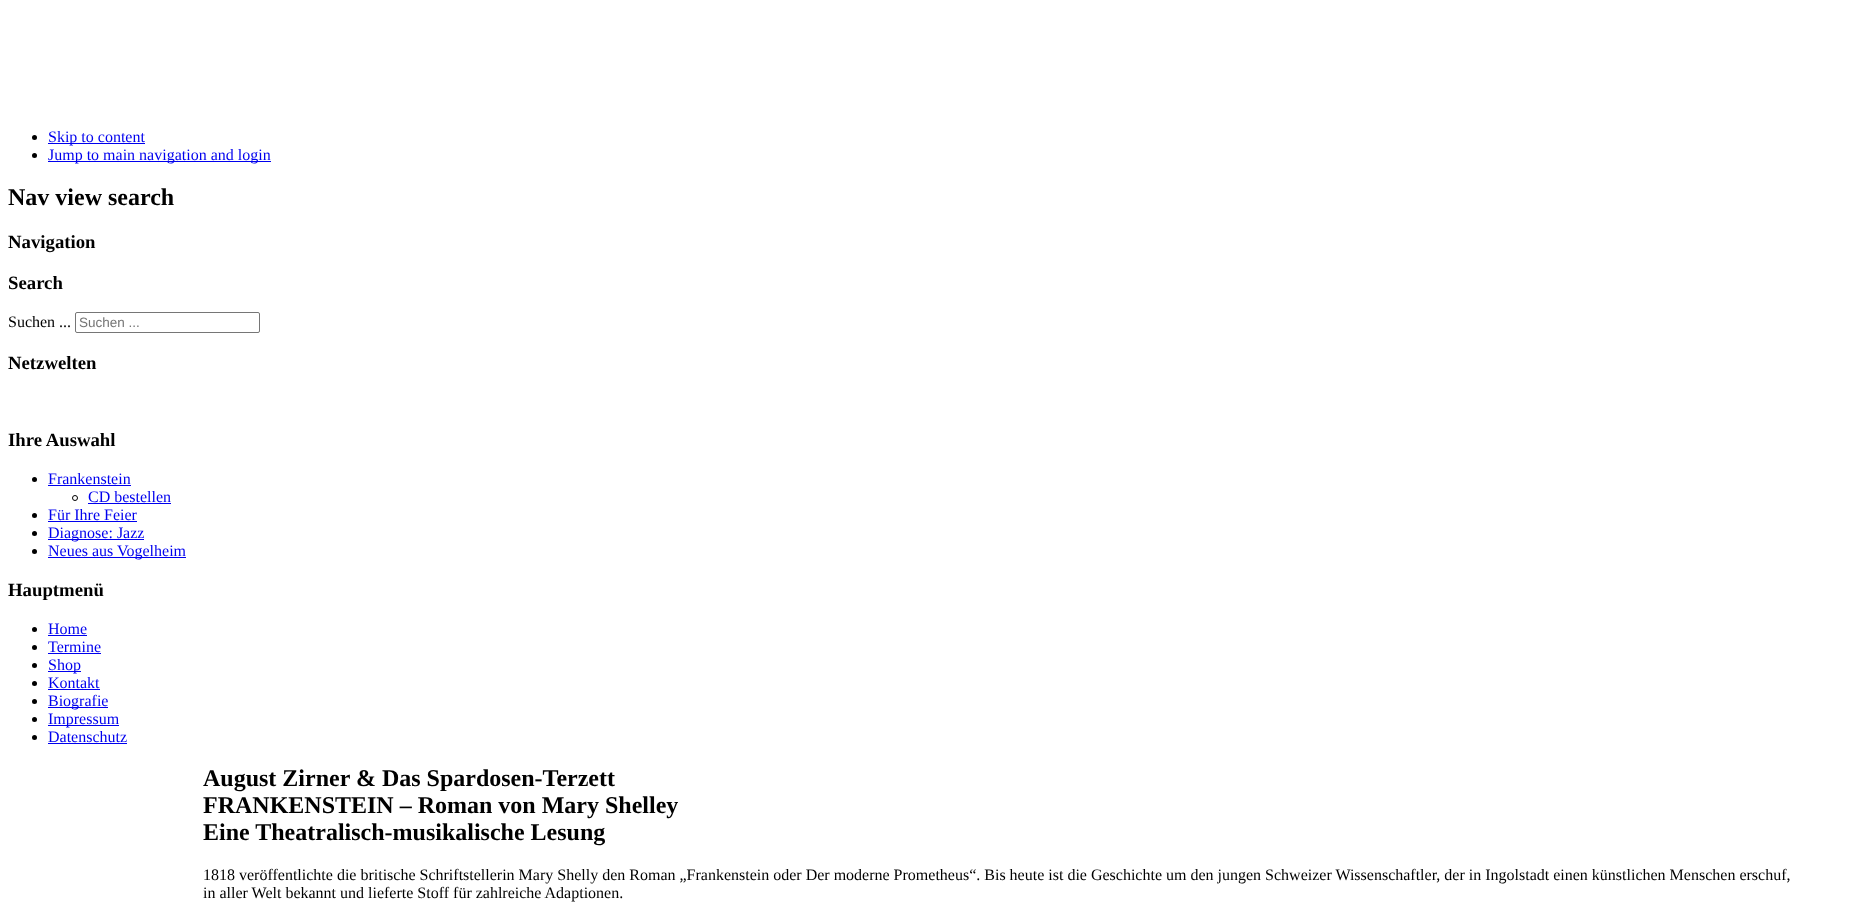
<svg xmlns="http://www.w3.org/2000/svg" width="1857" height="904">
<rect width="100%" height="100%" fill="#fff"/>
<circle cx="34.5" cy="137.5" r="2.5" fill="#000"/>
<rect x="48" y="143" width="97" height="1" fill="#00e"/>
<text x="48" y="142" style="font-family:Liberation Serif;font-size:16px;fill:#00e">Skip to content</text>
<circle cx="34.5" cy="155.5" r="2.5" fill="#000"/>
<rect x="48" y="161" width="223" height="1" fill="#00e"/>
<text x="48" y="160" style="font-family:Liberation Serif;font-size:16px;fill:#00e">Jump to main navigation and login</text>
<text x="8" y="205" style="font-family:Liberation Serif;font-size:24px;font-weight:bold;fill:#000">Nav view search</text>
<text x="8" y="248" style="font-family:Liberation Serif;font-size:18.75px;font-weight:bold;fill:#000">Navigation</text>
<text x="8" y="289" style="font-family:Liberation Serif;font-size:18.75px;font-weight:bold;fill:#000">Search</text>
<text x="8" y="327" style="font-family:Liberation Serif;font-size:16px;fill:#000">Suchen ...</text>
<rect x="75.5" y="312.5" width="184" height="20" rx="1.5" fill="none" stroke="#767676"/>
<text x="79" y="327" style="font-family:Liberation Sans;font-size:13.5px;fill:#757575">Suchen ...</text>
<text x="8" y="369" style="font-family:Liberation Serif;font-size:18.75px;font-weight:bold;fill:#000">Netzwelten</text>
<text x="8" y="446" style="font-family:Liberation Serif;font-size:18.75px;font-weight:bold;fill:#000">Ihre Auswahl</text>
<circle cx="34.5" cy="479.5" r="2.5" fill="#000"/>
<text x="48" y="484" style="font-family:Liberation Serif;font-size:16px;fill:#00e">Frankenstein</text>
<rect x="48" y="485" width="83" height="1" fill="#00e"/>
<circle cx="75" cy="498" r="2.5" fill="none" stroke="#000"/>
<text x="88" y="502" style="font-family:Liberation Serif;font-size:16px;fill:#00e">CD bestellen</text>
<rect x="88" y="503" width="83" height="1" fill="#00e"/>
<circle cx="34.5" cy="515.5" r="2.5" fill="#000"/>
<text x="48" y="520" style="font-family:Liberation Serif;font-size:16px;fill:#00e">Für Ihre Feier</text>
<rect x="48" y="521" width="89" height="1" fill="#00e"/>
<circle cx="34.5" cy="533.5" r="2.5" fill="#000"/>
<rect x="48" y="539" width="96" height="1" fill="#00e"/>
<text x="48" y="538" style="font-family:Liberation Serif;font-size:16px;fill:#00e">Diagnose: Jazz</text>
<circle cx="34.5" cy="551.5" r="2.5" fill="#000"/>
<rect x="48" y="557" width="138" height="1" fill="#00e"/>
<text x="48" y="556" style="font-family:Liberation Serif;font-size:16px;fill:#00e">Neues aus Vogelheim</text>
<text x="8" y="596" style="font-family:Liberation Serif;font-size:18.75px;font-weight:bold;fill:#000">Hauptmenü</text>
<circle cx="34.5" cy="629.5" r="2.5" fill="#000"/>
<text x="48" y="634" style="font-family:Liberation Serif;font-size:16px;fill:#00e">Home</text>
<rect x="48" y="635" width="39" height="1" fill="#00e"/>
<circle cx="34.5" cy="647.5" r="2.5" fill="#000"/>
<text x="48" y="652" style="font-family:Liberation Serif;font-size:16px;fill:#00e">Termine</text>
<rect x="48" y="653" width="53" height="1" fill="#00e"/>
<circle cx="34.5" cy="665.5" r="2.5" fill="#000"/>
<rect x="48" y="671" width="33" height="1" fill="#00e"/>
<text x="48" y="670" style="font-family:Liberation Serif;font-size:16px;fill:#00e">Shop</text>
<circle cx="34.5" cy="683.5" r="2.5" fill="#000"/>
<text x="48" y="688" style="font-family:Liberation Serif;font-size:16px;fill:#00e">Kontakt</text>
<rect x="48" y="689" width="52" height="1" fill="#00e"/>
<circle cx="34.5" cy="701.5" r="2.5" fill="#000"/>
<rect x="48" y="707" width="60" height="1" fill="#00e"/>
<text x="48" y="706" style="font-family:Liberation Serif;font-size:16px;fill:#00e">Biografie</text>
<circle cx="34.5" cy="719.5" r="2.5" fill="#000"/>
<rect x="48" y="725" width="71" height="1" fill="#00e"/>
<text x="48" y="724" style="font-family:Liberation Serif;font-size:16px;fill:#00e">Impressum</text>
<circle cx="34.5" cy="737.5" r="2.5" fill="#000"/>
<text x="48" y="742" style="font-family:Liberation Serif;font-size:16px;fill:#00e">Datenschutz</text>
<rect x="48" y="743" width="79" height="1" fill="#00e"/>
<text x="203" y="786" style="font-family:Liberation Serif;font-size:24px;font-weight:bold;fill:#000">August Zirner &amp; Das Spardosen-Terzett</text>
<text x="203" y="813" style="font-family:Liberation Serif;font-size:24px;font-weight:bold;fill:#000">FRANKENSTEIN – Roman von Mary Shelley</text>
<text x="203" y="840" style="font-family:Liberation Serif;font-size:24px;font-weight:bold;fill:#000">Eine Theatralisch-musikalische Lesung</text>
<text x="203" y="880" style="font-family:Liberation Serif;font-size:16px;fill:#000">1818 veröffentlichte die britische Schriftstellerin Mary Shelly den Roman „Frankenstein oder Der moderne Prometheus“. Bis heute ist die Geschichte um den jungen Schweizer Wissenschaftler, der in Ingolstadt einen künstlichen Menschen erschuf,</text>
<text x="203" y="898" style="font-family:Liberation Serif;font-size:16px;fill:#000">in aller Welt bekannt und lieferte Stoff für zahlreiche Adaptionen.</text>
</svg>
